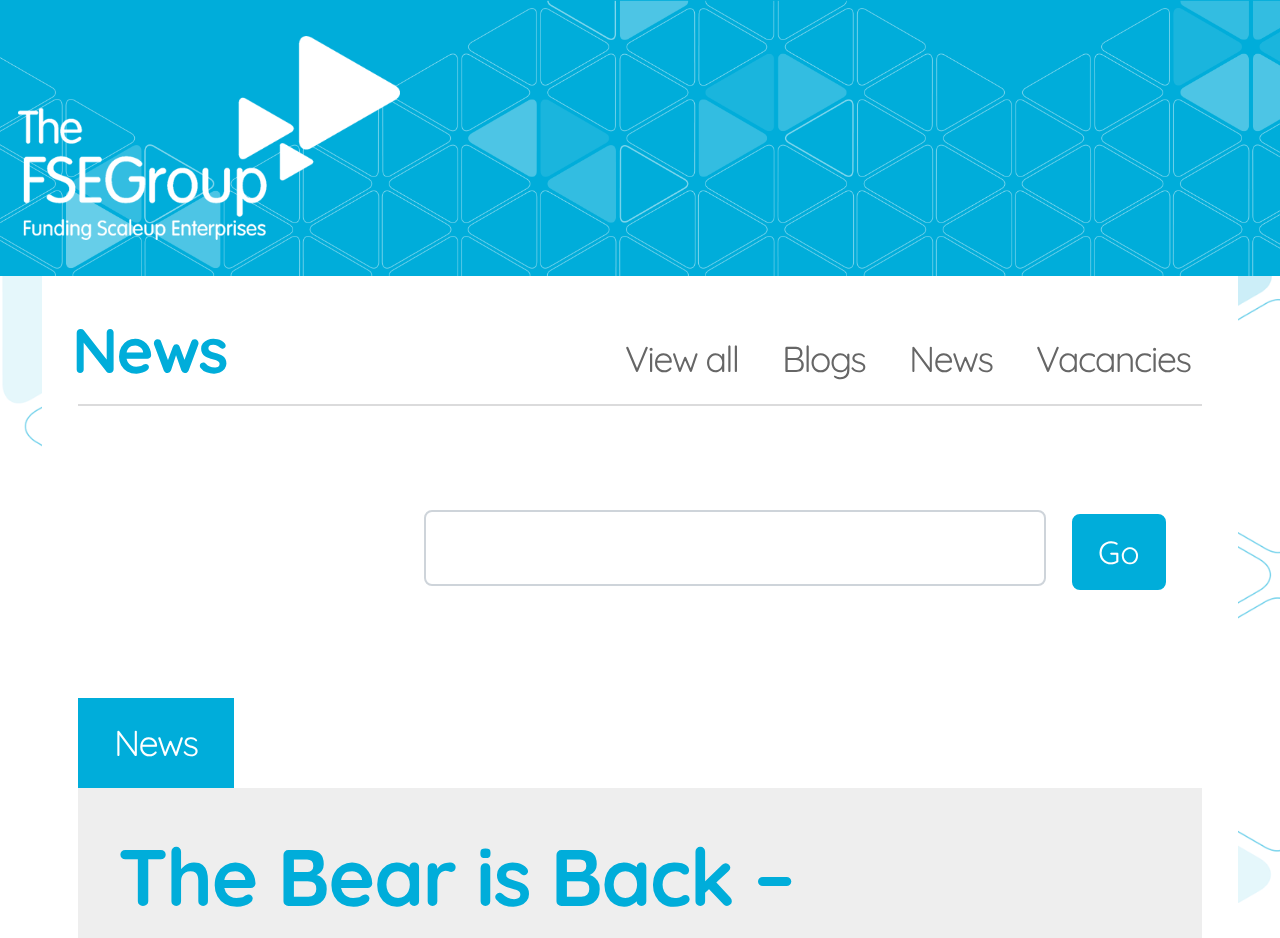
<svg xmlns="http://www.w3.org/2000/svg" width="1280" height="938">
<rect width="100%" height="100%" fill="#fff"/>
<image x="2" y="276" width="1278" height="627" href="media/1.png"/>
<rect width="1280" height="276" fill="#00adda"/>
<image x="0" y="0" width="1280" height="276" href="media/2.png"/>
<image x="18" y="36" width="382" height="204" href="media/3.png"/>
<rect x="42" y="276" width="1196" height="627" fill="#fff"/>
<text x="72" y="373" style="font-family:Quicksand;font-size:63px;font-weight:bold;letter-spacing:-1.75px;fill:#00adda">News</text>
<text x="625" y="372" style="font-family:Quicksand;font-size:36px;letter-spacing:-1.75px;fill:#666">View all</text>
<text x="782" y="372" style="font-family:Quicksand;font-size:36px;letter-spacing:-1.75px;fill:#666">Blogs</text>
<text x="909" y="372" style="font-family:Quicksand;font-size:36px;letter-spacing:-1.75px;fill:#666">News</text>
<text x="1036" y="372" style="font-family:Quicksand;font-size:36px;letter-spacing:-1.75px;fill:#666">Vacancies</text>
<rect x="78" y="404" width="1124" height="2" fill="#dbdbdc"/>
<rect x="425" y="511" width="620" height="74" rx="7" fill="none" stroke="#ced4da" stroke-width="2"/>
<rect x="1073" y="515" width="92" height="74" rx="7" fill="#00adda" stroke="#00adda" stroke-width="2"/>
<text x="1098" y="564" style="font-family:Quicksand;font-size:32px;fill:#fff">Go</text>
<rect x="78" y="698" width="156" height="90" fill="#00adda"/>
<text x="114" y="756" style="font-family:Quicksand;font-size:36px;letter-spacing:-1.75px;fill:#fff">News</text>
<rect x="78" y="788" width="1124" height="150" fill="#eee"/>
<text x="118" y="906" style="font-family:Quicksand;font-size:80px;font-weight:bold;letter-spacing:-1.75px;fill:#00adda">The Bear is Back –</text>
</svg>
